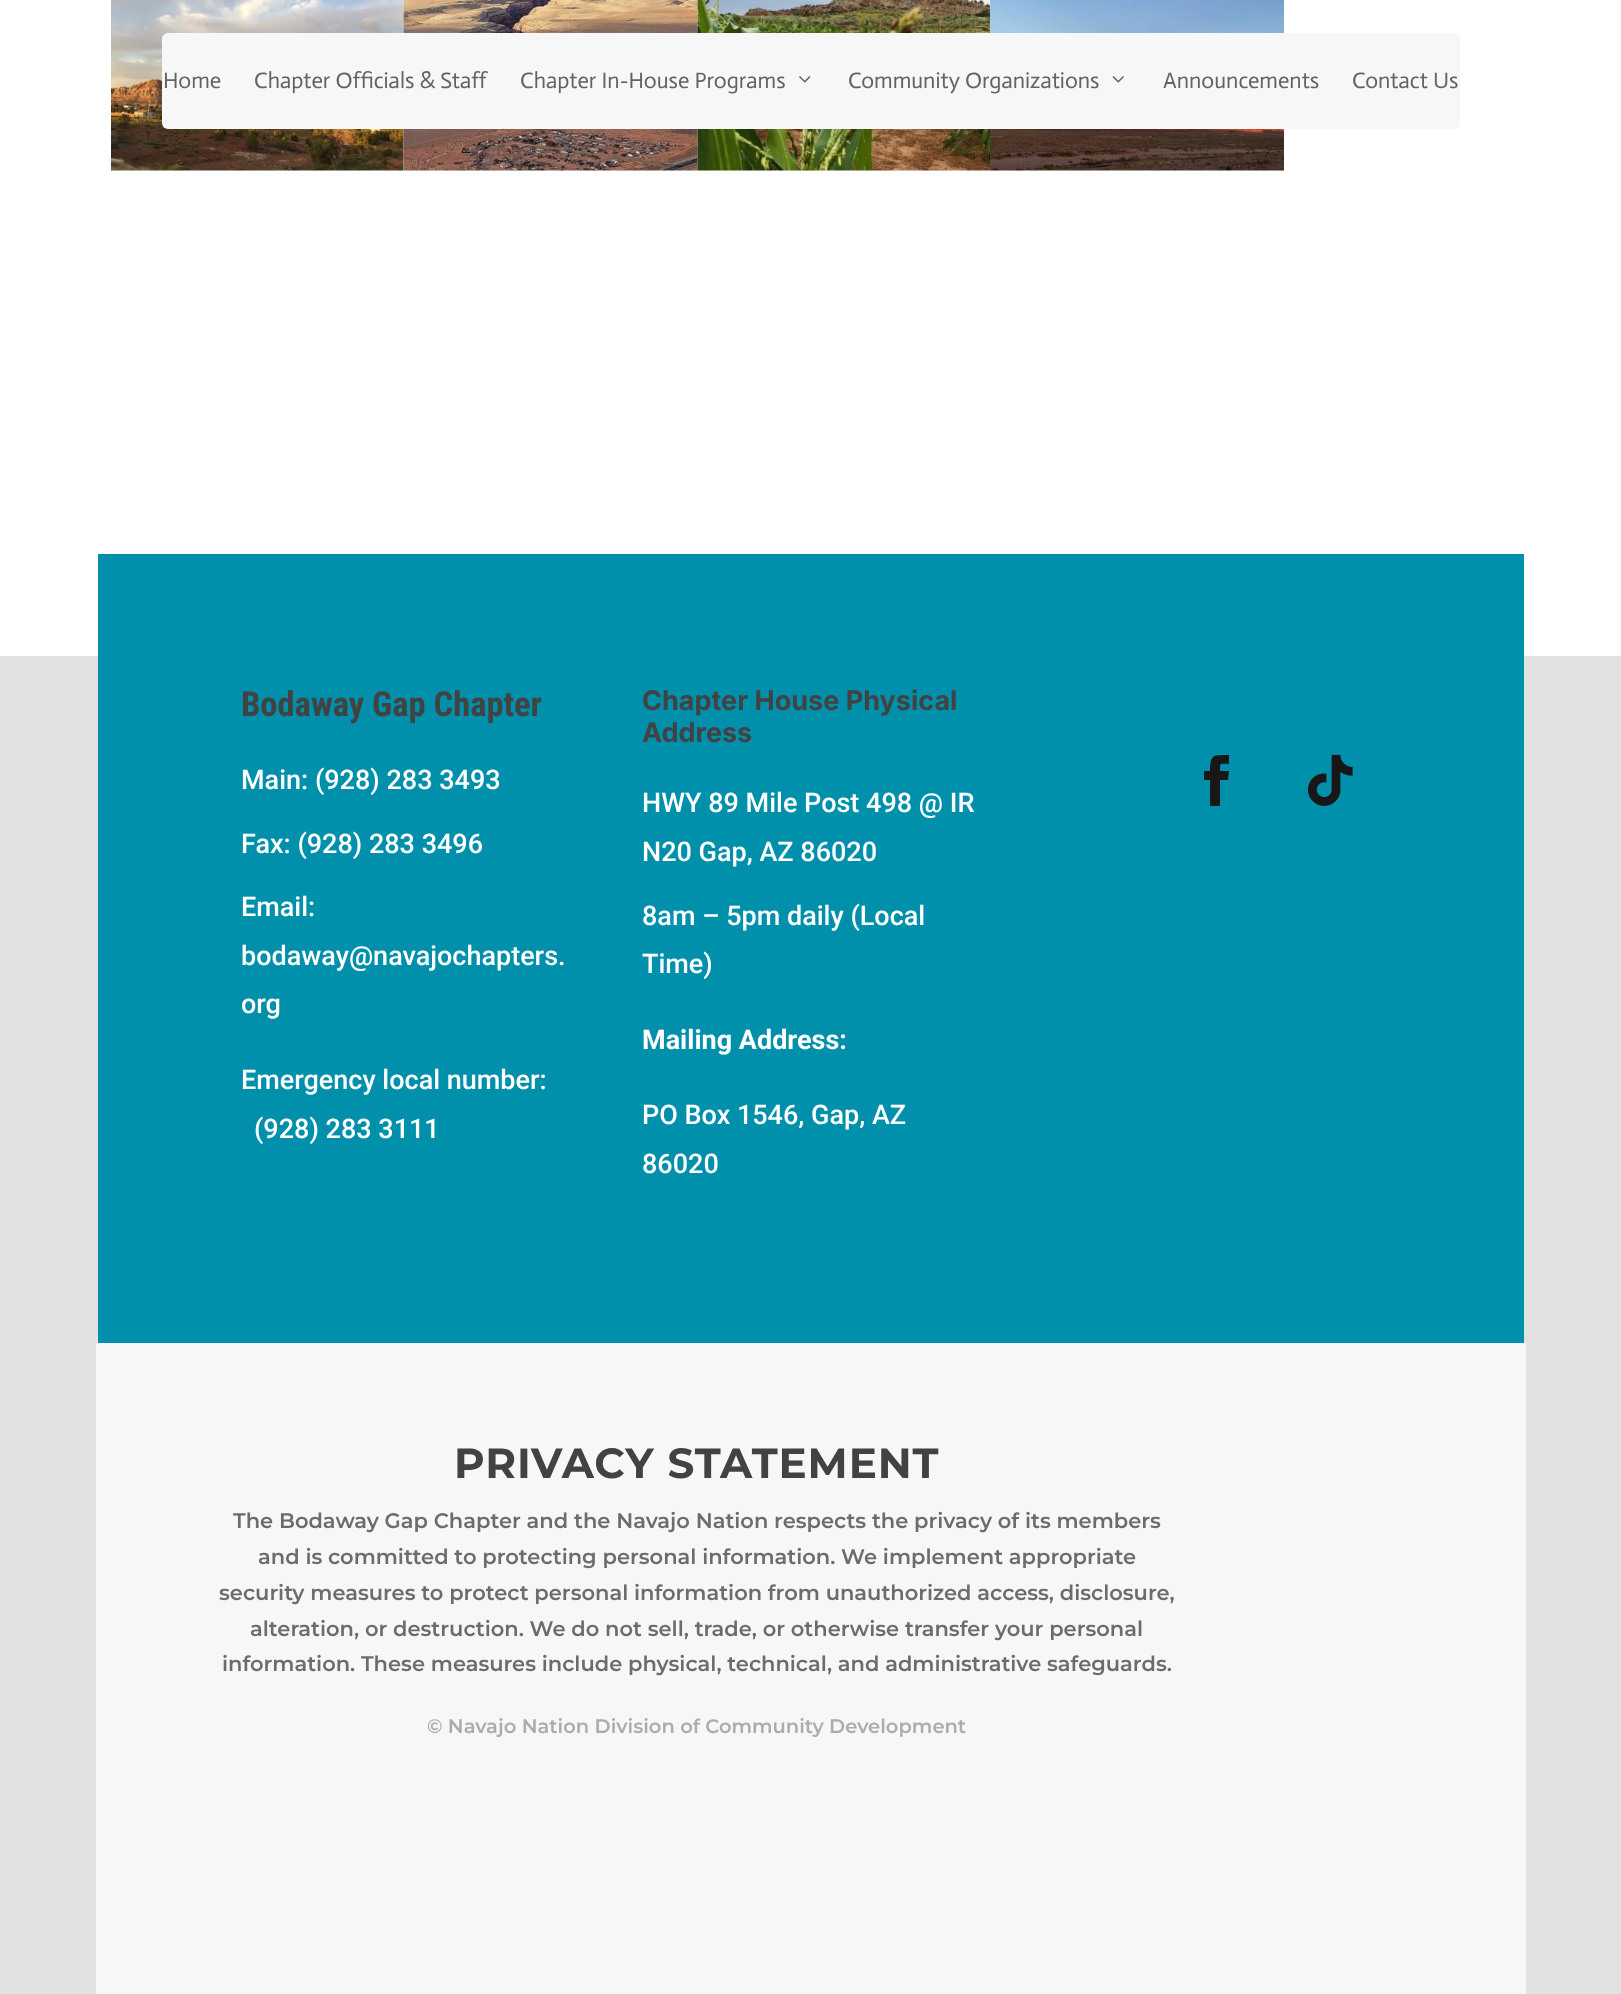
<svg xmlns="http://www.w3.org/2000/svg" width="1621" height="1994">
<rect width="100%" height="100%" fill="#e2e2e2"/>
<rect width="1621" height="656" fill="#fff"/>
<image x="111" y="0" width="293" height="171" href="media/3.png"/>
<image x="403" y="0" width="295" height="171" href="media/4.png"/>
<image x="697" y="0" width="293" height="171" href="media/5.png"/>
<image x="990" y="0" width="294" height="171" href="media/6.png"/>
<rect x="162" y="33" width="1298" height="96" rx="6" fill="#f7f7f7"/>
<text x="163" y="88" style="font-family:Actor;font-size:22.5px;fill:#636363">Home</text>
<text x="254" y="88" style="font-family:Actor;font-size:22.5px;fill:#636363">Chapter Officials &amp; Staff</text>
<text x="520" y="88" style="font-family:Actor;font-size:22.5px;fill:#636363">Chapter In-House Programs</text>
<image x="799" y="76" width="12" height="7" href="media/1.png"/>
<text x="848" y="88" style="font-family:Actor;font-size:22.5px;fill:#636363">Community Organizations</text>
<image x="1112" y="76" width="12" height="7" href="media/2.png"/>
<text x="1163" y="88" style="font-family:Actor;font-size:22.5px;fill:#636363">Announcements</text>
<text x="1352" y="88" style="font-family:Actor;font-size:22.5px;fill:#636363">Contact Us</text>
<rect x="98" y="554" width="1426" height="789" fill="#0090ab"/>
<text x="241" y="716" style="font-family:Roboto Condensed;font-size:34.5px;font-weight:bold;fill:#424242">Bodaway Gap Chapter</text>
<text x="241" y="789" style="font-family:Roboto;font-size:27px;font-weight:500;fill:#fff">Main: (928) 283 3493</text>
<text x="241" y="853" style="font-family:Roboto;font-size:27px;font-weight:500;fill:#fff">Fax: (928) 283 3496</text>
<text x="241" y="916" style="font-family:Roboto;font-size:27px;font-weight:500;fill:#fff">Email:</text>
<text x="241" y="965" style="font-family:Roboto;font-size:27px;font-weight:500;fill:#fff">bodaway@navajochapters.</text>
<text x="241" y="1013" style="font-family:Roboto;font-size:27px;font-weight:500;fill:#fff">org</text>
<text x="241" y="1089" style="font-family:Roboto;font-size:27px;font-weight:500;fill:#fff">Emergency local number:</text>
<text x="254" y="1138" style="font-family:Roboto;font-size:27px;font-weight:500;fill:#fff">(928) 283 3111</text>
<text x="642" y="710" style="font-family:Inter;font-size:27px;font-weight:bold;fill:#424242">Chapter House Physical</text>
<text x="642" y="742" style="font-family:Inter;font-size:27px;font-weight:bold;fill:#424242">Address</text>
<text x="642" y="812" style="font-family:Roboto;font-size:27px;font-weight:500;fill:#fff">HWY 89 Mile Post 498 @ IR</text>
<text x="642" y="861" style="font-family:Roboto;font-size:27px;font-weight:500;fill:#fff">N20 Gap, AZ 86020</text>
<text x="642" y="925" style="font-family:Roboto;font-size:27px;font-weight:500;fill:#fff">8am – 5pm daily (Local</text>
<text x="642" y="973" style="font-family:Roboto;font-size:27px;font-weight:500;fill:#fff">Time)</text>
<text x="642" y="1049" style="font-family:Roboto;font-size:27px;font-weight:bold;fill:#fff">Mailing Address:</text>
<text x="642" y="1124" style="font-family:Roboto;font-size:27px;font-weight:500;fill:#fff">PO Box 1546, Gap, AZ</text>
<text x="642" y="1173" style="font-family:Roboto;font-size:27px;font-weight:500;fill:#fff">86020</text>
<path d="M1210 806h10v-26h8l1-9h-9c0-9 0-7 9-7v-9c-16 0-19-1-19 16h-6v9h6z" fill="#171717"/>
<image x="1308" y="754" width="45" height="52" href="media/7.png"/>
<rect x="96" y="1343" width="1430" height="651" fill="#f7f7f7"/>
<text x="454" y="1478" style="font-family:Montserrat;font-size:42px;font-weight:100;letter-spacing:0.9px;fill:#424242">PRIVACY STATEMENT</text>
<text x="233" y="1528" style="font-family:'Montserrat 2';font-size:21px;font-weight:100;fill:#6c6c6c">The Bodaway Gap Chapter and the Navajo Nation respects the privacy of its members</text>
<text x="258" y="1564" style="font-family:'Montserrat 2';font-size:21px;font-weight:100;fill:#6c6c6c">and is committed to protecting personal information. We implement appropriate</text>
<text x="219" y="1600" style="font-family:'Montserrat 2';font-size:21px;font-weight:100;fill:#6c6c6c">security measures to protect personal information from unauthorized access, disclosure,</text>
<text x="250" y="1636" style="font-family:'Montserrat 2';font-size:21px;font-weight:100;fill:#6c6c6c">alteration, or destruction. We do not sell, trade, or otherwise transfer your personal</text>
<text x="222" y="1671" style="font-family:'Montserrat 2';font-size:21px;font-weight:100;fill:#6c6c6c">information. These measures include physical, technical, and administrative safeguards.</text>
<text x="427" y="1733" style="font-family:'Montserrat 2';font-size:19.5px;font-weight:100;fill:#acacac">© Navajo Nation Division of Community Development</text>
</svg>
